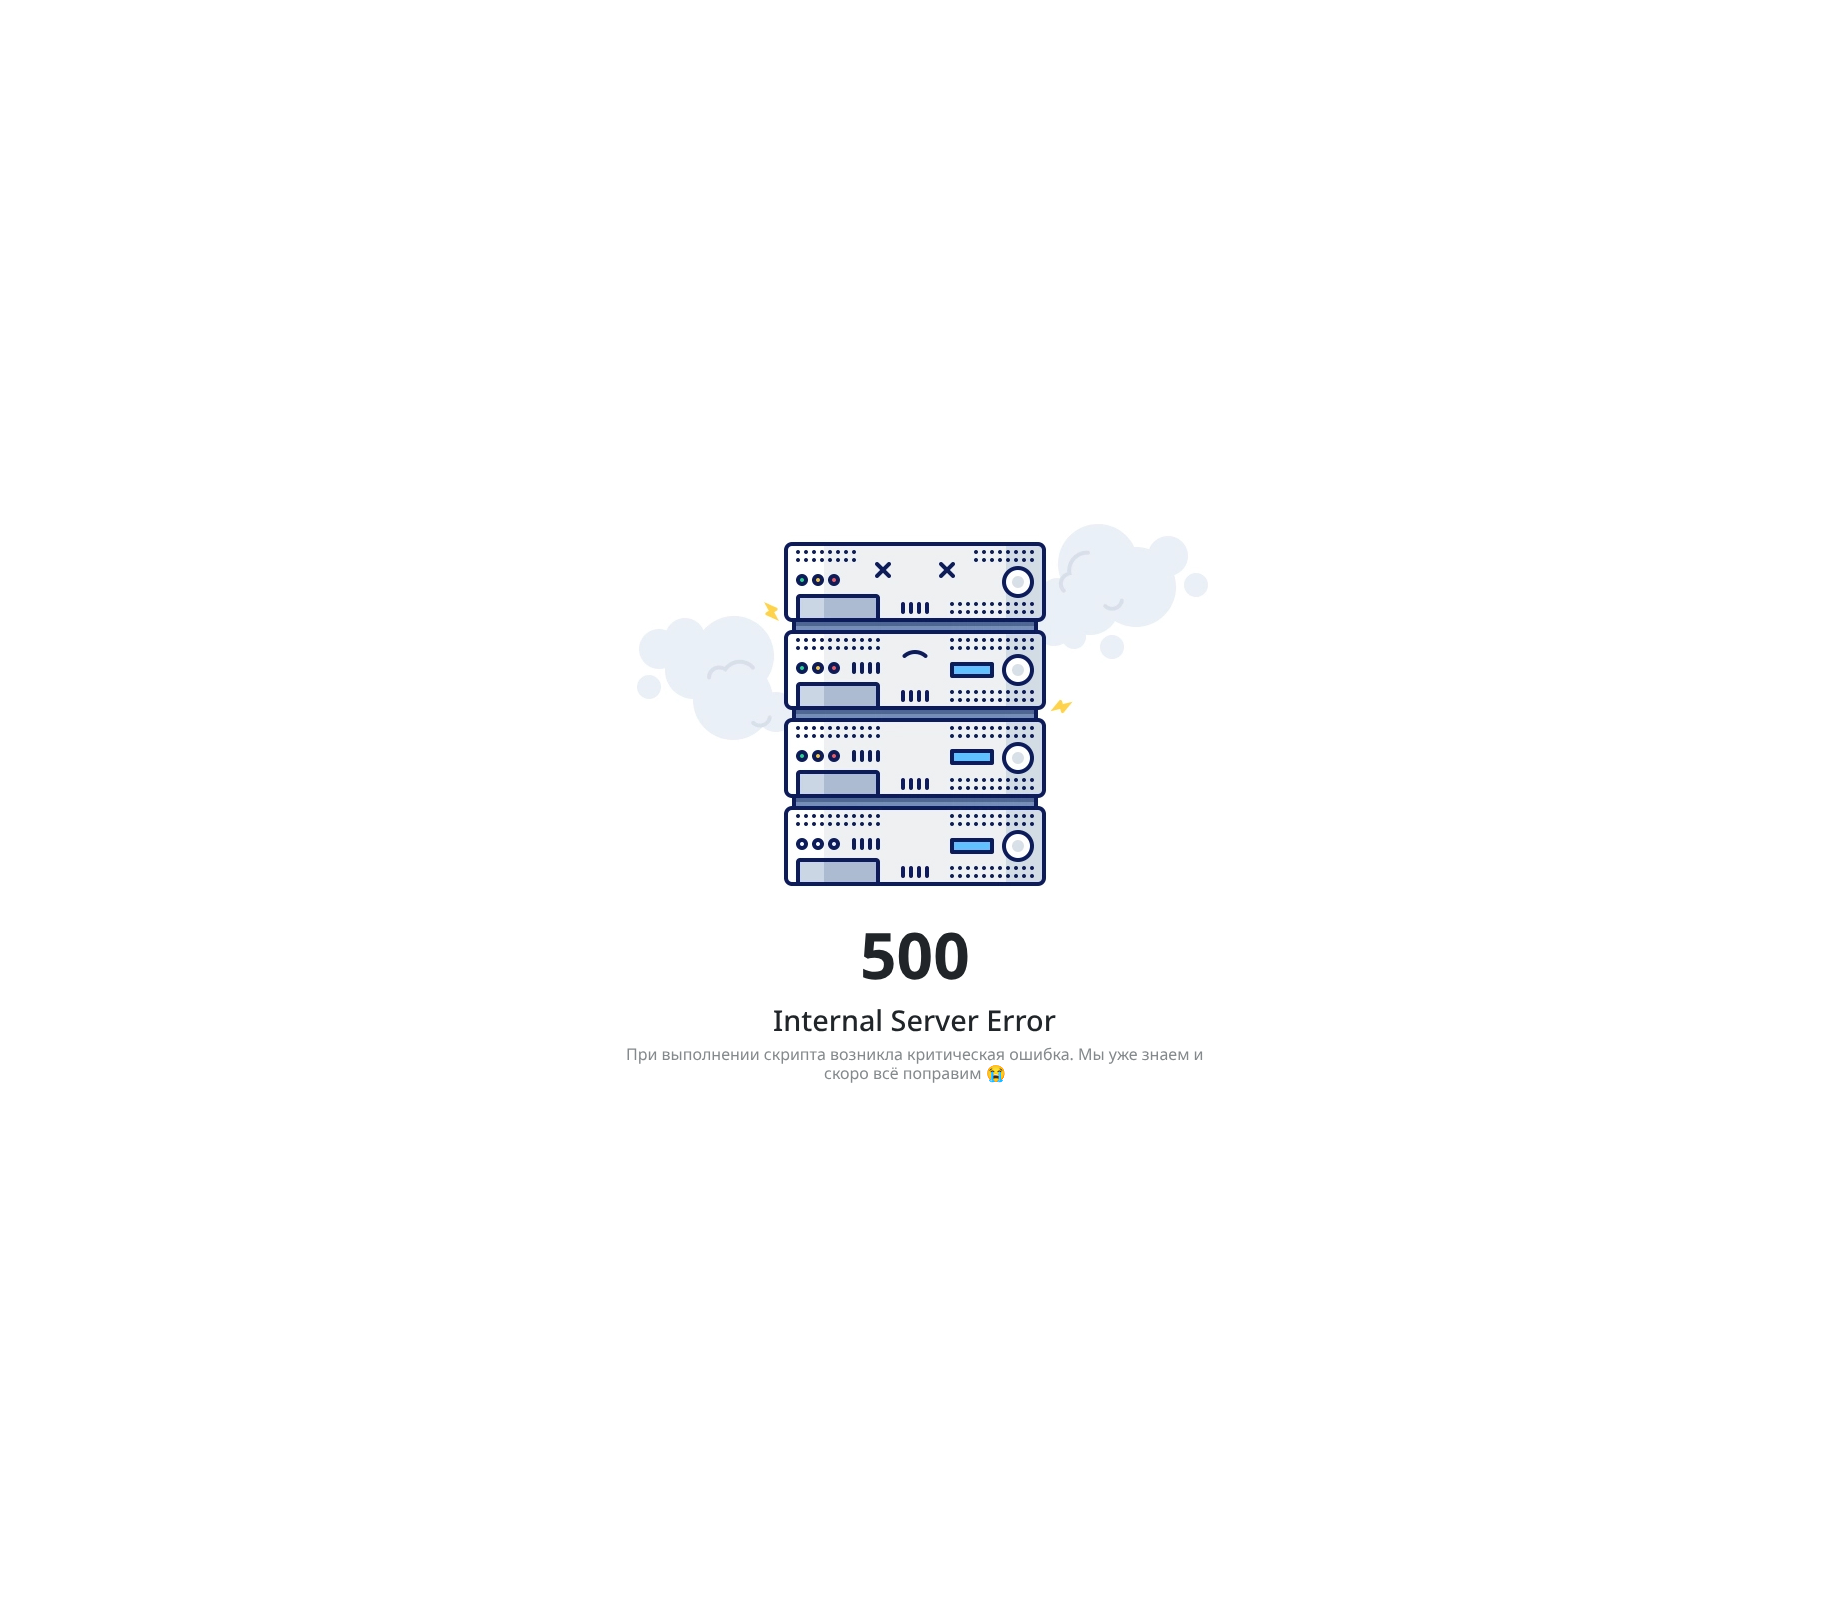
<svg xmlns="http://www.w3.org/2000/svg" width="1830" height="1606">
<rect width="100%" height="100%" fill="#fff"/>
<image x="637" y="524" width="571" height="364" href="media/1.png"/>
<text x="860" y="979" style="font-family:Noto Sans;font-size:64px;font-weight:bold;fill:#212529">500</text>
<text x="773" y="1031" style="font-family:Noto Sans;font-size:28.75px;font-weight:500;fill:#212529">Internal Server Error</text>
<text x="626" y="1060" style="font-family:Noto Sans;font-size:16px;fill:#85898c">При выполнении скрипта возникла критическая ошибка. Мы уже знаем и</text>
<text x="824" y="1079" style="font-family:Noto Sans;font-size:16px;fill:#85898c">скоро всё поправим</text>
<text x="986" y="1079" style="font-family:Noto Color Emoji;font-size:16px;fill:#85898c">😭</text>
</svg>
